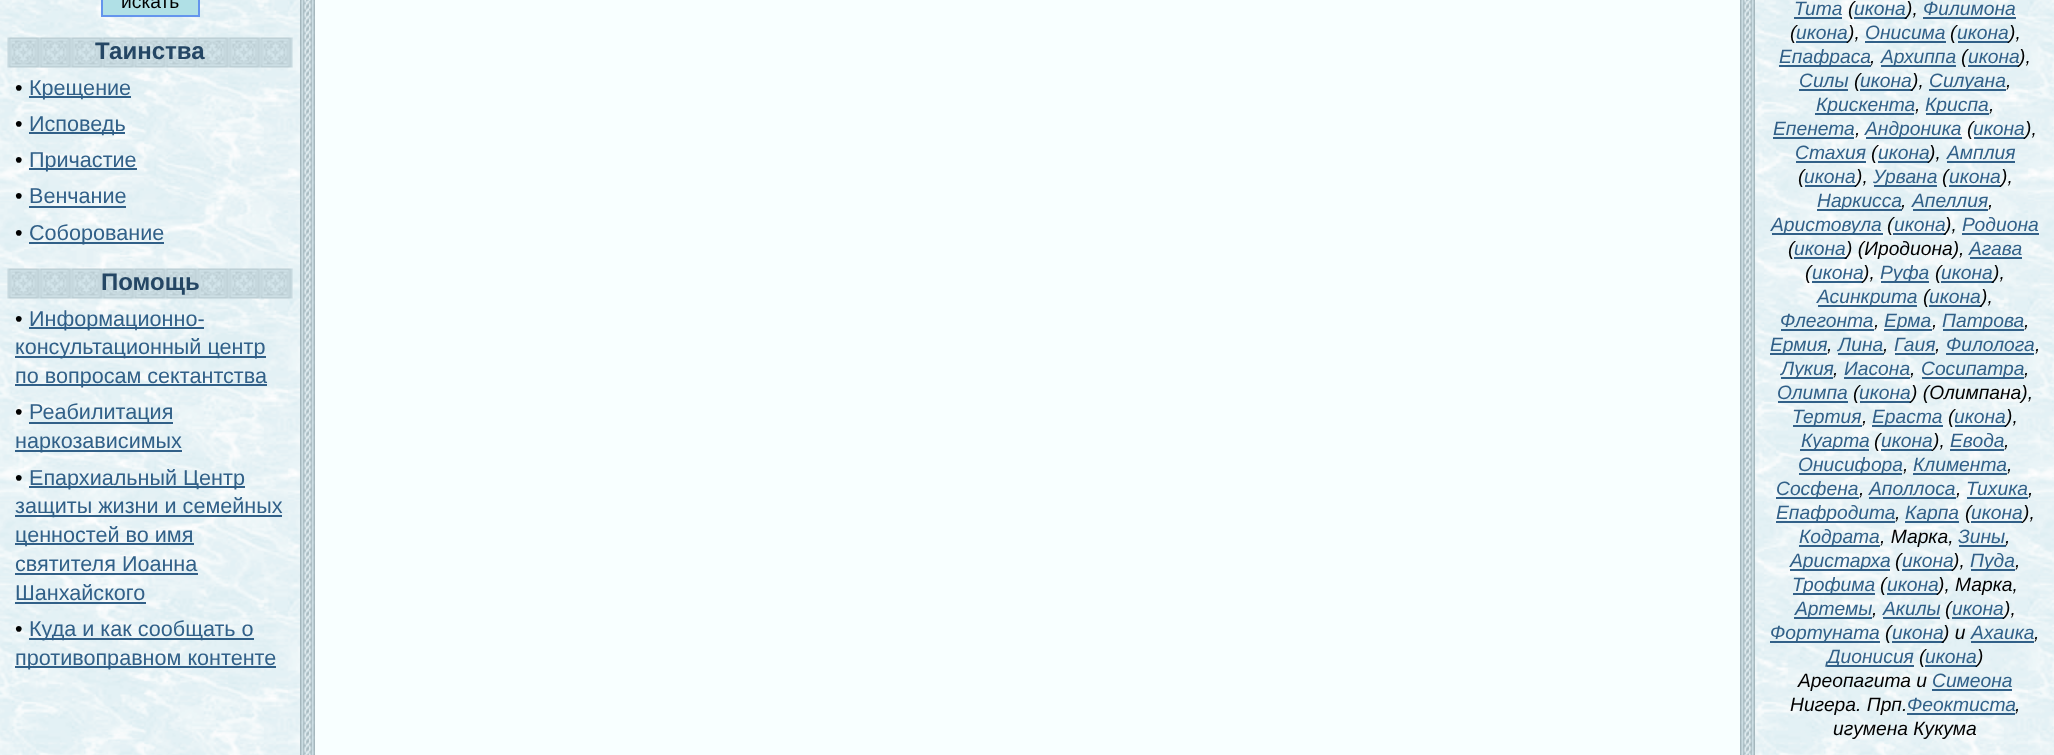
<svg xmlns="http://www.w3.org/2000/svg" width="2054" height="755">
<rect width="100%" height="100%" fill="#f8ffff"/>
<image x="0" y="0" width="315" height="755" href="media/1.png"/>
<rect x="102" y="-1" width="97" height="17" fill="#b0e0e6" stroke="#6495ed" stroke-width="2"/>
<text x="121" y="8" style="font-family:Liberation Sans;font-size:19.25px;fill:#000">искать</text>
<image x="7" y="37" width="286" height="31" href="media/2.png"/>
<text x="95" y="59" style="font-family:Liberation Sans;font-size:24px;font-weight:bold;fill:#244664">Таинства</text>
<text x="15" y="95" style="font-family:Liberation Sans;font-size:21.6px;fill:#000">•</text>
<rect x="29" y="96" width="102" height="2" fill="#316088"/>
<text x="29" y="95" style="font-family:Liberation Sans;font-size:21.6px;fill:#316088">Крещение</text>
<text x="15" y="131" style="font-family:Liberation Sans;font-size:21.6px;fill:#000">•</text>
<rect x="29" y="132" width="96" height="2" fill="#316088"/>
<text x="29" y="131" style="font-family:Liberation Sans;font-size:21.6px;fill:#316088">Исповедь</text>
<text x="15" y="167" style="font-family:Liberation Sans;font-size:21.6px;fill:#000">•</text>
<rect x="29" y="168" width="108" height="2" fill="#316088"/>
<text x="29" y="167" style="font-family:Liberation Sans;font-size:21.6px;fill:#316088">Причастие</text>
<text x="15" y="203" style="font-family:Liberation Sans;font-size:21.6px;fill:#000">•</text>
<text x="29" y="203" style="font-family:Liberation Sans;font-size:21.6px;fill:#316088">Венчание</text>
<rect x="29" y="206" width="97" height="2" fill="#316088"/>
<text x="15" y="240" style="font-family:Liberation Sans;font-size:21.6px;fill:#000">•</text>
<rect x="29" y="242" width="135" height="2" fill="#316088"/>
<text x="29" y="240" style="font-family:Liberation Sans;font-size:21.6px;fill:#316088">Соборование</text>
<image x="7" y="268" width="286" height="31" href="media/3.png"/>
<text x="101" y="290" style="font-family:Liberation Sans;font-size:24px;font-weight:bold;fill:#244664">Помощь</text>
<text x="15" y="326" style="font-family:Liberation Sans;font-size:21.6px;fill:#000">•</text>
<rect x="29" y="327" width="175" height="2" fill="#316088"/>
<text x="29" y="326" style="font-family:Liberation Sans;font-size:21.6px;fill:#316088">Информационно-</text>
<rect x="15" y="356" width="251" height="2" fill="#316088"/>
<text x="15" y="354" style="font-family:Liberation Sans;font-size:21.6px;fill:#316088">консультационный центр</text>
<rect x="15" y="384" width="252" height="2" fill="#316088"/>
<text x="15" y="383" style="font-family:Liberation Sans;font-size:21.6px;fill:#316088">по вопросам сектантства</text>
<text x="15" y="419" style="font-family:Liberation Sans;font-size:21.6px;fill:#000">•</text>
<rect x="29" y="422" width="144" height="2" fill="#316088"/>
<text x="29" y="419" style="font-family:Liberation Sans;font-size:21.6px;fill:#316088">Реабилитация</text>
<rect x="15" y="450" width="167" height="2" fill="#316088"/>
<text x="15" y="448" style="font-family:Liberation Sans;font-size:21.6px;fill:#316088">наркозависимых</text>
<text x="15" y="485" style="font-family:Liberation Sans;font-size:21.6px;fill:#000">•</text>
<rect x="29" y="486" width="216" height="2" fill="#316088"/>
<text x="29" y="485" style="font-family:Liberation Sans;font-size:21.6px;fill:#316088">Епархиальный Центр</text>
<rect x="15" y="515" width="267" height="2" fill="#316088"/>
<text x="15" y="513" style="font-family:Liberation Sans;font-size:21.6px;fill:#316088">защиты жизни и семейных</text>
<rect x="15" y="543" width="179" height="2" fill="#316088"/>
<text x="15" y="542" style="font-family:Liberation Sans;font-size:21.6px;fill:#316088">ценностей во имя</text>
<text x="15" y="571" style="font-family:Liberation Sans;font-size:21.6px;fill:#316088">святителя Иоанна</text>
<rect x="15" y="573" width="183" height="2" fill="#316088"/>
<text x="15" y="600" style="font-family:Liberation Sans;font-size:21.6px;fill:#316088">Шанхайского</text>
<rect x="15" y="602" width="131" height="2" fill="#316088"/>
<text x="15" y="636" style="font-family:Liberation Sans;font-size:21.6px;fill:#000">•</text>
<rect x="29" y="638" width="225" height="2" fill="#316088"/>
<text x="29" y="636" style="font-family:Liberation Sans;font-size:21.6px;fill:#316088">Куда и как сообщать о</text>
<rect x="15" y="666" width="261" height="2" fill="#316088"/>
<text x="15" y="665" style="font-family:Liberation Sans;font-size:21.6px;fill:#316088">противоправном контенте</text>
<image x="1740" y="0" width="314" height="755" href="media/4.png"/>
<text x="1794" y="15" style="font-family:Liberation Sans;font-size:19.25px;font-style:italic;fill:#316088">Тита</text>
<rect x="1794" y="17" width="48" height="2" fill="#316088"/>
<text x="1848" y="15" style="font-family:Liberation Sans;font-size:19.25px;font-style:italic;fill:#000">(</text>
<rect x="1854" y="17" width="53" height="2" fill="#316088"/>
<text x="1854" y="15" style="font-family:Liberation Sans;font-size:19.25px;font-style:italic;fill:#316088">икона</text>
<text x="1906" y="15" style="font-family:Liberation Sans;font-size:19.25px;font-style:italic;fill:#000">),</text>
<text x="1923" y="15" style="font-family:Liberation Sans;font-size:19.25px;font-style:italic;fill:#316088">Филимона</text>
<rect x="1923" y="17" width="93" height="2" fill="#316088"/>
<text x="1790" y="39" style="font-family:Liberation Sans;font-size:19.25px;font-style:italic;fill:#000">(</text>
<rect x="1796" y="41" width="52" height="2" fill="#316088"/>
<text x="1796" y="39" style="font-family:Liberation Sans;font-size:19.25px;font-style:italic;fill:#316088">икона</text>
<text x="1848" y="39" style="font-family:Liberation Sans;font-size:19.25px;font-style:italic;fill:#000">),</text>
<text x="1865" y="39" style="font-family:Liberation Sans;font-size:19.25px;font-style:italic;fill:#316088">Онисима</text>
<rect x="1865" y="41" width="81" height="2" fill="#316088"/>
<text x="1950" y="39" style="font-family:Liberation Sans;font-size:19.25px;font-style:italic;fill:#000">(</text>
<rect x="1958" y="41" width="51" height="2" fill="#316088"/>
<text x="1957" y="39" style="font-family:Liberation Sans;font-size:19.25px;font-style:italic;fill:#316088">икона</text>
<text x="2009" y="39" style="font-family:Liberation Sans;font-size:19.25px;font-style:italic;fill:#000">),</text>
<rect x="1779" y="65" width="92" height="2" fill="#316088"/>
<text x="1779" y="63" style="font-family:Liberation Sans;font-size:19.25px;font-style:italic;fill:#316088">Епафраса</text>
<text x="1870" y="63" style="font-family:Liberation Sans;font-size:19.25px;font-style:italic;fill:#000">,</text>
<rect x="1881" y="65" width="75" height="2" fill="#316088"/>
<text x="1881" y="63" style="font-family:Liberation Sans;font-size:19.25px;font-style:italic;fill:#316088">Архиппа</text>
<text x="1961" y="63" style="font-family:Liberation Sans;font-size:19.25px;font-style:italic;fill:#000">(</text>
<rect x="1968" y="65" width="51" height="2" fill="#316088"/>
<text x="1968" y="63" style="font-family:Liberation Sans;font-size:19.25px;font-style:italic;fill:#316088">икона</text>
<text x="2019" y="63" style="font-family:Liberation Sans;font-size:19.25px;font-style:italic;fill:#000">),</text>
<text x="1799" y="87" style="font-family:Liberation Sans;font-size:19.25px;font-style:italic;fill:#316088">Силы</text>
<rect x="1799" y="89" width="49" height="2" fill="#316088"/>
<text x="1854" y="87" style="font-family:Liberation Sans;font-size:19.25px;font-style:italic;fill:#000">(</text>
<rect x="1860" y="89" width="53" height="2" fill="#316088"/>
<text x="1860" y="87" style="font-family:Liberation Sans;font-size:19.25px;font-style:italic;fill:#316088">икона</text>
<text x="1912" y="87" style="font-family:Liberation Sans;font-size:19.25px;font-style:italic;fill:#000">),</text>
<rect x="1929" y="89" width="77" height="2" fill="#316088"/>
<text x="1929" y="87" style="font-family:Liberation Sans;font-size:19.25px;font-style:italic;fill:#316088">Силуана</text>
<text x="2006" y="87" style="font-family:Liberation Sans;font-size:19.25px;font-style:italic;fill:#000">,</text>
<rect x="1815" y="113" width="99" height="2" fill="#316088"/>
<text x="1816" y="111" style="font-family:Liberation Sans;font-size:19.25px;font-style:italic;fill:#316088">Крискента</text>
<text x="1915" y="111" style="font-family:Liberation Sans;font-size:19.25px;font-style:italic;fill:#000">,</text>
<rect x="1926" y="113" width="63" height="2" fill="#316088"/>
<text x="1925" y="111" style="font-family:Liberation Sans;font-size:19.25px;font-style:italic;fill:#316088">Криспа</text>
<text x="1989" y="111" style="font-family:Liberation Sans;font-size:19.25px;font-style:italic;fill:#000">,</text>
<text x="1773" y="135" style="font-family:Liberation Sans;font-size:19.25px;font-style:italic;fill:#316088">Епенета</text>
<text x="1855" y="135" style="font-family:Liberation Sans;font-size:19.25px;font-style:italic;fill:#000">,</text>
<rect x="1773" y="137" width="81" height="2" fill="#316088"/>
<rect x="1866" y="137" width="96" height="2" fill="#316088"/>
<text x="1865" y="135" style="font-family:Liberation Sans;font-size:19.25px;font-style:italic;fill:#316088">Андроника</text>
<text x="1967" y="135" style="font-family:Liberation Sans;font-size:19.25px;font-style:italic;fill:#000">(</text>
<rect x="1974" y="137" width="51" height="2" fill="#316088"/>
<text x="1973" y="135" style="font-family:Liberation Sans;font-size:19.25px;font-style:italic;fill:#316088">икона</text>
<text x="2025" y="135" style="font-family:Liberation Sans;font-size:19.25px;font-style:italic;fill:#000">),</text>
<text x="1795" y="159" style="font-family:Liberation Sans;font-size:19.25px;font-style:italic;fill:#316088">Стахия</text>
<rect x="1796" y="161" width="70" height="2" fill="#316088"/>
<text x="1871" y="159" style="font-family:Liberation Sans;font-size:19.25px;font-style:italic;fill:#000">(</text>
<rect x="1878" y="161" width="51" height="2" fill="#316088"/>
<text x="1878" y="159" style="font-family:Liberation Sans;font-size:19.25px;font-style:italic;fill:#316088">икона</text>
<text x="1929" y="159" style="font-family:Liberation Sans;font-size:19.25px;font-style:italic;fill:#000">),</text>
<text x="1947" y="159" style="font-family:Liberation Sans;font-size:19.25px;font-style:italic;fill:#316088">Амплия</text>
<rect x="1947" y="161" width="68" height="2" fill="#316088"/>
<text x="1798" y="183" style="font-family:Liberation Sans;font-size:19.25px;font-style:italic;fill:#000">(</text>
<rect x="1805" y="185" width="51" height="2" fill="#316088"/>
<text x="1804" y="183" style="font-family:Liberation Sans;font-size:19.25px;font-style:italic;fill:#316088">икона</text>
<text x="1856" y="183" style="font-family:Liberation Sans;font-size:19.25px;font-style:italic;fill:#000">),</text>
<rect x="1874" y="185" width="63" height="2" fill="#316088"/>
<text x="1873" y="183" style="font-family:Liberation Sans;font-size:19.25px;font-style:italic;fill:#316088">Урвана</text>
<text x="1942" y="183" style="font-family:Liberation Sans;font-size:19.25px;font-style:italic;fill:#000">(</text>
<rect x="1949" y="185" width="52" height="2" fill="#316088"/>
<text x="1949" y="183" style="font-family:Liberation Sans;font-size:19.25px;font-style:italic;fill:#316088">икона</text>
<text x="2001" y="183" style="font-family:Liberation Sans;font-size:19.25px;font-style:italic;fill:#000">),</text>
<rect x="1817" y="209" width="85" height="2" fill="#316088"/>
<text x="1817" y="207" style="font-family:Liberation Sans;font-size:19.25px;font-style:italic;fill:#316088">Наркисса</text>
<text x="1901" y="207" style="font-family:Liberation Sans;font-size:19.25px;font-style:italic;fill:#000">,</text>
<text x="1912" y="207" style="font-family:Liberation Sans;font-size:19.25px;font-style:italic;fill:#316088">Апеллия</text>
<text x="1988" y="207" style="font-family:Liberation Sans;font-size:19.25px;font-style:italic;fill:#000">,</text>
<rect x="1913" y="209" width="75" height="2" fill="#316088"/>
<rect x="1772" y="233" width="111" height="2" fill="#316088"/>
<text x="1771" y="231" style="font-family:Liberation Sans;font-size:19.25px;font-style:italic;fill:#316088">Аристовула</text>
<text x="1887" y="231" style="font-family:Liberation Sans;font-size:19.25px;font-style:italic;fill:#000">(</text>
<rect x="1893" y="233" width="53" height="2" fill="#316088"/>
<text x="1894" y="231" style="font-family:Liberation Sans;font-size:19.25px;font-style:italic;fill:#316088">икона</text>
<text x="1945" y="231" style="font-family:Liberation Sans;font-size:19.25px;font-style:italic;fill:#000">),</text>
<text x="1962" y="231" style="font-family:Liberation Sans;font-size:19.25px;font-style:italic;fill:#316088">Родиона</text>
<rect x="1962" y="233" width="77" height="2" fill="#316088"/>
<text x="1788" y="255" style="font-family:Liberation Sans;font-size:19.25px;font-style:italic;fill:#000">(</text>
<rect x="1794" y="257" width="53" height="2" fill="#316088"/>
<text x="1794" y="255" style="font-family:Liberation Sans;font-size:19.25px;font-style:italic;fill:#316088">икона</text>
<text x="1846" y="255" style="font-family:Liberation Sans;font-size:19.25px;font-style:italic;fill:#000">) (Иродиона),</text>
<text x="1969" y="255" style="font-family:Liberation Sans;font-size:19.25px;font-style:italic;fill:#316088">Агава</text>
<rect x="1970" y="257" width="52" height="2" fill="#316088"/>
<text x="1805" y="279" style="font-family:Liberation Sans;font-size:19.25px;font-style:italic;fill:#000">(</text>
<rect x="1812" y="281" width="51" height="2" fill="#316088"/>
<text x="1812" y="279" style="font-family:Liberation Sans;font-size:19.25px;font-style:italic;fill:#316088">икона</text>
<text x="1863" y="279" style="font-family:Liberation Sans;font-size:19.25px;font-style:italic;fill:#000">),</text>
<rect x="1881" y="281" width="48" height="2" fill="#316088"/>
<text x="1880" y="279" style="font-family:Liberation Sans;font-size:19.25px;font-style:italic;fill:#316088">Руфа</text>
<text x="1935" y="279" style="font-family:Liberation Sans;font-size:19.25px;font-style:italic;fill:#000">(</text>
<rect x="1941" y="281" width="53" height="2" fill="#316088"/>
<text x="1941" y="279" style="font-family:Liberation Sans;font-size:19.25px;font-style:italic;fill:#316088">икона</text>
<text x="1993" y="279" style="font-family:Liberation Sans;font-size:19.25px;font-style:italic;fill:#000">),</text>
<rect x="1818" y="305" width="99" height="2" fill="#316088"/>
<text x="1817" y="303" style="font-family:Liberation Sans;font-size:19.25px;font-style:italic;fill:#316088">Асинкрита</text>
<text x="1923" y="303" style="font-family:Liberation Sans;font-size:19.25px;font-style:italic;fill:#000">(</text>
<rect x="1929" y="305" width="53" height="2" fill="#316088"/>
<text x="1929" y="303" style="font-family:Liberation Sans;font-size:19.25px;font-style:italic;fill:#316088">икона</text>
<text x="1981" y="303" style="font-family:Liberation Sans;font-size:19.25px;font-style:italic;fill:#000">),</text>
<text x="1780" y="327" style="font-family:Liberation Sans;font-size:19.25px;font-style:italic;fill:#316088">Флегонта</text>
<text x="1874" y="327" style="font-family:Liberation Sans;font-size:19.25px;font-style:italic;fill:#000">,</text>
<rect x="1781" y="329" width="93" height="2" fill="#316088"/>
<rect x="1884" y="329" width="48" height="2" fill="#316088"/>
<text x="1884" y="327" style="font-family:Liberation Sans;font-size:19.25px;font-style:italic;fill:#316088">Ерма</text>
<text x="1932" y="327" style="font-family:Liberation Sans;font-size:19.25px;font-style:italic;fill:#000">,</text>
<rect x="1943" y="329" width="81" height="2" fill="#316088"/>
<text x="1942" y="327" style="font-family:Liberation Sans;font-size:19.25px;font-style:italic;fill:#316088">Патрова</text>
<text x="2024" y="327" style="font-family:Liberation Sans;font-size:19.25px;font-style:italic;fill:#000">,</text>
<rect x="1770" y="353" width="57" height="2" fill="#316088"/>
<text x="1770" y="351" style="font-family:Liberation Sans;font-size:19.25px;font-style:italic;fill:#316088">Ермия</text>
<text x="1827" y="351" style="font-family:Liberation Sans;font-size:19.25px;font-style:italic;fill:#000">,</text>
<text x="1838" y="351" style="font-family:Liberation Sans;font-size:19.25px;font-style:italic;fill:#316088">Лина</text>
<rect x="1838" y="353" width="46" height="2" fill="#316088"/>
<text x="1883" y="351" style="font-family:Liberation Sans;font-size:19.25px;font-style:italic;fill:#000">,</text>
<text x="1894" y="351" style="font-family:Liberation Sans;font-size:19.25px;font-style:italic;fill:#316088">Гаия</text>
<text x="1935" y="351" style="font-family:Liberation Sans;font-size:19.25px;font-style:italic;fill:#000">,</text>
<rect x="1895" y="353" width="40" height="2" fill="#316088"/>
<text x="1946" y="351" style="font-family:Liberation Sans;font-size:19.25px;font-style:italic;fill:#316088">Филолога</text>
<text x="2035" y="351" style="font-family:Liberation Sans;font-size:19.25px;font-style:italic;fill:#000">,</text>
<rect x="1946" y="353" width="88" height="2" fill="#316088"/>
<rect x="1781" y="377" width="52" height="2" fill="#316088"/>
<text x="1781" y="375" style="font-family:Liberation Sans;font-size:19.25px;font-style:italic;fill:#316088">Лукия</text>
<text x="1833" y="375" style="font-family:Liberation Sans;font-size:19.25px;font-style:italic;fill:#000">,</text>
<text x="1844" y="375" style="font-family:Liberation Sans;font-size:19.25px;font-style:italic;fill:#316088">Иасона</text>
<text x="1910" y="375" style="font-family:Liberation Sans;font-size:19.25px;font-style:italic;fill:#000">,</text>
<rect x="1844" y="377" width="66" height="2" fill="#316088"/>
<rect x="1922" y="377" width="102" height="2" fill="#316088"/>
<text x="1921" y="375" style="font-family:Liberation Sans;font-size:19.25px;font-style:italic;fill:#316088">Сосипатра</text>
<text x="2024" y="375" style="font-family:Liberation Sans;font-size:19.25px;font-style:italic;fill:#000">,</text>
<text x="1777" y="399" style="font-family:Liberation Sans;font-size:19.25px;font-style:italic;fill:#316088">Олимпа</text>
<rect x="1778" y="401" width="70" height="2" fill="#316088"/>
<text x="1853" y="399" style="font-family:Liberation Sans;font-size:19.25px;font-style:italic;fill:#000">(</text>
<rect x="1860" y="401" width="51" height="2" fill="#316088"/>
<text x="1859" y="399" style="font-family:Liberation Sans;font-size:19.25px;font-style:italic;fill:#316088">икона</text>
<text x="1911" y="399" style="font-family:Liberation Sans;font-size:19.25px;font-style:italic;fill:#000">) (Олимпана),</text>
<rect x="1793" y="425" width="69" height="2" fill="#316088"/>
<text x="1792" y="423" style="font-family:Liberation Sans;font-size:19.25px;font-style:italic;fill:#316088">Тертия</text>
<text x="1862" y="423" style="font-family:Liberation Sans;font-size:19.25px;font-style:italic;fill:#000">,</text>
<rect x="1872" y="425" width="71" height="2" fill="#316088"/>
<text x="1872" y="423" style="font-family:Liberation Sans;font-size:19.25px;font-style:italic;fill:#316088">Ераста</text>
<text x="1948" y="423" style="font-family:Liberation Sans;font-size:19.25px;font-style:italic;fill:#000">(</text>
<rect x="1955" y="425" width="51" height="2" fill="#316088"/>
<text x="1954" y="423" style="font-family:Liberation Sans;font-size:19.25px;font-style:italic;fill:#316088">икона</text>
<text x="2006" y="423" style="font-family:Liberation Sans;font-size:19.25px;font-style:italic;fill:#000">),</text>
<rect x="1800" y="449" width="69" height="2" fill="#316088"/>
<text x="1801" y="447" style="font-family:Liberation Sans;font-size:19.25px;font-style:italic;fill:#316088">Куарта</text>
<text x="1874" y="447" style="font-family:Liberation Sans;font-size:19.25px;font-style:italic;fill:#000">(</text>
<rect x="1881" y="449" width="51" height="2" fill="#316088"/>
<text x="1881" y="447" style="font-family:Liberation Sans;font-size:19.25px;font-style:italic;fill:#316088">икона</text>
<text x="1933" y="447" style="font-family:Liberation Sans;font-size:19.25px;font-style:italic;fill:#000">),</text>
<text x="1950" y="447" style="font-family:Liberation Sans;font-size:19.25px;font-style:italic;fill:#316088">Евода</text>
<text x="2004" y="447" style="font-family:Liberation Sans;font-size:19.25px;font-style:italic;fill:#000">,</text>
<rect x="1950" y="449" width="54" height="2" fill="#316088"/>
<rect x="1799" y="473" width="103" height="2" fill="#316088"/>
<text x="1798" y="471" style="font-family:Liberation Sans;font-size:19.25px;font-style:italic;fill:#316088">Онисифора</text>
<text x="1903" y="471" style="font-family:Liberation Sans;font-size:19.25px;font-style:italic;fill:#000">,</text>
<text x="1913" y="471" style="font-family:Liberation Sans;font-size:19.25px;font-style:italic;fill:#316088">Климента</text>
<text x="2007" y="471" style="font-family:Liberation Sans;font-size:19.25px;font-style:italic;fill:#000">,</text>
<rect x="1913" y="473" width="94" height="2" fill="#316088"/>
<rect x="1776" y="497" width="83" height="2" fill="#316088"/>
<text x="1776" y="495" style="font-family:Liberation Sans;font-size:19.25px;font-style:italic;fill:#316088">Сосфена</text>
<text x="1859" y="495" style="font-family:Liberation Sans;font-size:19.25px;font-style:italic;fill:#000">,</text>
<text x="1869" y="495" style="font-family:Liberation Sans;font-size:19.25px;font-style:italic;fill:#316088">Аполлоса</text>
<text x="1956" y="495" style="font-family:Liberation Sans;font-size:19.25px;font-style:italic;fill:#000">,</text>
<rect x="1869" y="497" width="87" height="2" fill="#316088"/>
<text x="1966" y="495" style="font-family:Liberation Sans;font-size:19.25px;font-style:italic;fill:#316088">Тихика</text>
<text x="2028" y="495" style="font-family:Liberation Sans;font-size:19.25px;font-style:italic;fill:#000">,</text>
<rect x="1967" y="497" width="61" height="2" fill="#316088"/>
<rect x="1776" y="521" width="119" height="2" fill="#316088"/>
<text x="1776" y="519" style="font-family:Liberation Sans;font-size:19.25px;font-style:italic;fill:#316088">Епафродита</text>
<text x="1895" y="519" style="font-family:Liberation Sans;font-size:19.25px;font-style:italic;fill:#000">,</text>
<rect x="1905" y="521" width="54" height="2" fill="#316088"/>
<text x="1905" y="519" style="font-family:Liberation Sans;font-size:19.25px;font-style:italic;fill:#316088">Карпа</text>
<text x="1965" y="519" style="font-family:Liberation Sans;font-size:19.25px;font-style:italic;fill:#000">(</text>
<rect x="1971" y="521" width="51" height="2" fill="#316088"/>
<text x="1971" y="519" style="font-family:Liberation Sans;font-size:19.25px;font-style:italic;fill:#316088">икона</text>
<text x="2023" y="519" style="font-family:Liberation Sans;font-size:19.25px;font-style:italic;fill:#000">),</text>
<rect x="1799" y="545" width="81" height="2" fill="#316088"/>
<text x="1799" y="543" style="font-family:Liberation Sans;font-size:19.25px;font-style:italic;fill:#316088">Кодрата</text>
<text x="1880" y="543" style="font-family:Liberation Sans;font-size:19.25px;font-style:italic;fill:#000">, Марка,</text>
<text x="1958" y="543" style="font-family:Liberation Sans;font-size:19.25px;font-style:italic;fill:#316088">Зины</text>
<rect x="1959" y="545" width="47" height="2" fill="#316088"/>
<text x="2005" y="543" style="font-family:Liberation Sans;font-size:19.25px;font-style:italic;fill:#000">,</text>
<rect x="1790" y="569" width="100" height="2" fill="#316088"/>
<text x="1790" y="567" style="font-family:Liberation Sans;font-size:19.25px;font-style:italic;fill:#316088">Аристарха</text>
<text x="1895" y="567" style="font-family:Liberation Sans;font-size:19.25px;font-style:italic;fill:#000">(</text>
<rect x="1902" y="569" width="51" height="2" fill="#316088"/>
<text x="1902" y="567" style="font-family:Liberation Sans;font-size:19.25px;font-style:italic;fill:#316088">икона</text>
<text x="1953" y="567" style="font-family:Liberation Sans;font-size:19.25px;font-style:italic;fill:#000">),</text>
<rect x="1971" y="569" width="44" height="2" fill="#316088"/>
<text x="1970" y="567" style="font-family:Liberation Sans;font-size:19.25px;font-style:italic;fill:#316088">Пуда</text>
<text x="2015" y="567" style="font-family:Liberation Sans;font-size:19.25px;font-style:italic;fill:#000">,</text>
<rect x="1793" y="593" width="82" height="2" fill="#316088"/>
<text x="1792" y="591" style="font-family:Liberation Sans;font-size:19.25px;font-style:italic;fill:#316088">Трофима</text>
<text x="1880" y="591" style="font-family:Liberation Sans;font-size:19.25px;font-style:italic;fill:#000">(</text>
<rect x="1887" y="593" width="51" height="2" fill="#316088"/>
<text x="1887" y="591" style="font-family:Liberation Sans;font-size:19.25px;font-style:italic;fill:#316088">икона</text>
<text x="1938" y="591" style="font-family:Liberation Sans;font-size:19.25px;font-style:italic;fill:#000">), Марка,</text>
<rect x="1794" y="617" width="78" height="2" fill="#316088"/>
<text x="1795" y="615" style="font-family:Liberation Sans;font-size:19.25px;font-style:italic;fill:#316088">Артемы</text>
<text x="1872" y="615" style="font-family:Liberation Sans;font-size:19.25px;font-style:italic;fill:#000">,</text>
<rect x="1883" y="617" width="57" height="2" fill="#316088"/>
<text x="1883" y="615" style="font-family:Liberation Sans;font-size:19.25px;font-style:italic;fill:#316088">Акилы</text>
<text x="1945" y="615" style="font-family:Liberation Sans;font-size:19.25px;font-style:italic;fill:#000">(</text>
<rect x="1952" y="617" width="52" height="2" fill="#316088"/>
<text x="1952" y="615" style="font-family:Liberation Sans;font-size:19.25px;font-style:italic;fill:#316088">икона</text>
<text x="2004" y="615" style="font-family:Liberation Sans;font-size:19.25px;font-style:italic;fill:#000">),</text>
<rect x="1770" y="641" width="110" height="2" fill="#316088"/>
<text x="1770" y="639" style="font-family:Liberation Sans;font-size:19.25px;font-style:italic;fill:#316088">Фортуната</text>
<text x="1885" y="639" style="font-family:Liberation Sans;font-size:19.25px;font-style:italic;fill:#000">(</text>
<rect x="1892" y="641" width="52" height="2" fill="#316088"/>
<text x="1892" y="639" style="font-family:Liberation Sans;font-size:19.25px;font-style:italic;fill:#316088">икона</text>
<text x="1943" y="639" style="font-family:Liberation Sans;font-size:19.25px;font-style:italic;fill:#000">) и</text>
<text x="1971" y="639" style="font-family:Liberation Sans;font-size:19.25px;font-style:italic;fill:#316088">Ахаика</text>
<text x="2034" y="639" style="font-family:Liberation Sans;font-size:19.25px;font-style:italic;fill:#000">,</text>
<rect x="1971" y="641" width="63" height="2" fill="#316088"/>
<rect x="1827" y="665" width="87" height="2" fill="#316088"/>
<text x="1827" y="663" style="font-family:Liberation Sans;font-size:19.25px;font-style:italic;fill:#316088">Дионисия</text>
<text x="1919" y="663" style="font-family:Liberation Sans;font-size:19.25px;font-style:italic;fill:#000">(</text>
<rect x="1925" y="665" width="52" height="2" fill="#316088"/>
<text x="1925" y="663" style="font-family:Liberation Sans;font-size:19.25px;font-style:italic;fill:#316088">икона</text>
<text x="1977" y="663" style="font-family:Liberation Sans;font-size:19.25px;font-style:italic;fill:#000">)</text>
<text x="1798" y="687" style="font-family:Liberation Sans;font-size:19.25px;font-style:italic;fill:#000">Ареопагита и</text>
<text x="1932" y="687" style="font-family:Liberation Sans;font-size:19.25px;font-style:italic;fill:#316088">Симеона</text>
<rect x="1932" y="689" width="80" height="2" fill="#316088"/>
<text x="1790" y="711" style="font-family:Liberation Sans;font-size:19.25px;font-style:italic;fill:#000">Нигера. Прп.</text>
<text x="1907" y="711" style="font-family:Liberation Sans;font-size:19.25px;font-style:italic;fill:#316088">Феоктиста</text>
<text x="2015" y="711" style="font-family:Liberation Sans;font-size:19.25px;font-style:italic;fill:#000">,</text>
<rect x="1907" y="713" width="108" height="2" fill="#316088"/>
<text x="1833" y="735" style="font-family:Liberation Sans;font-size:19.25px;font-style:italic;fill:#000">игумена Кукума</text>
</svg>
